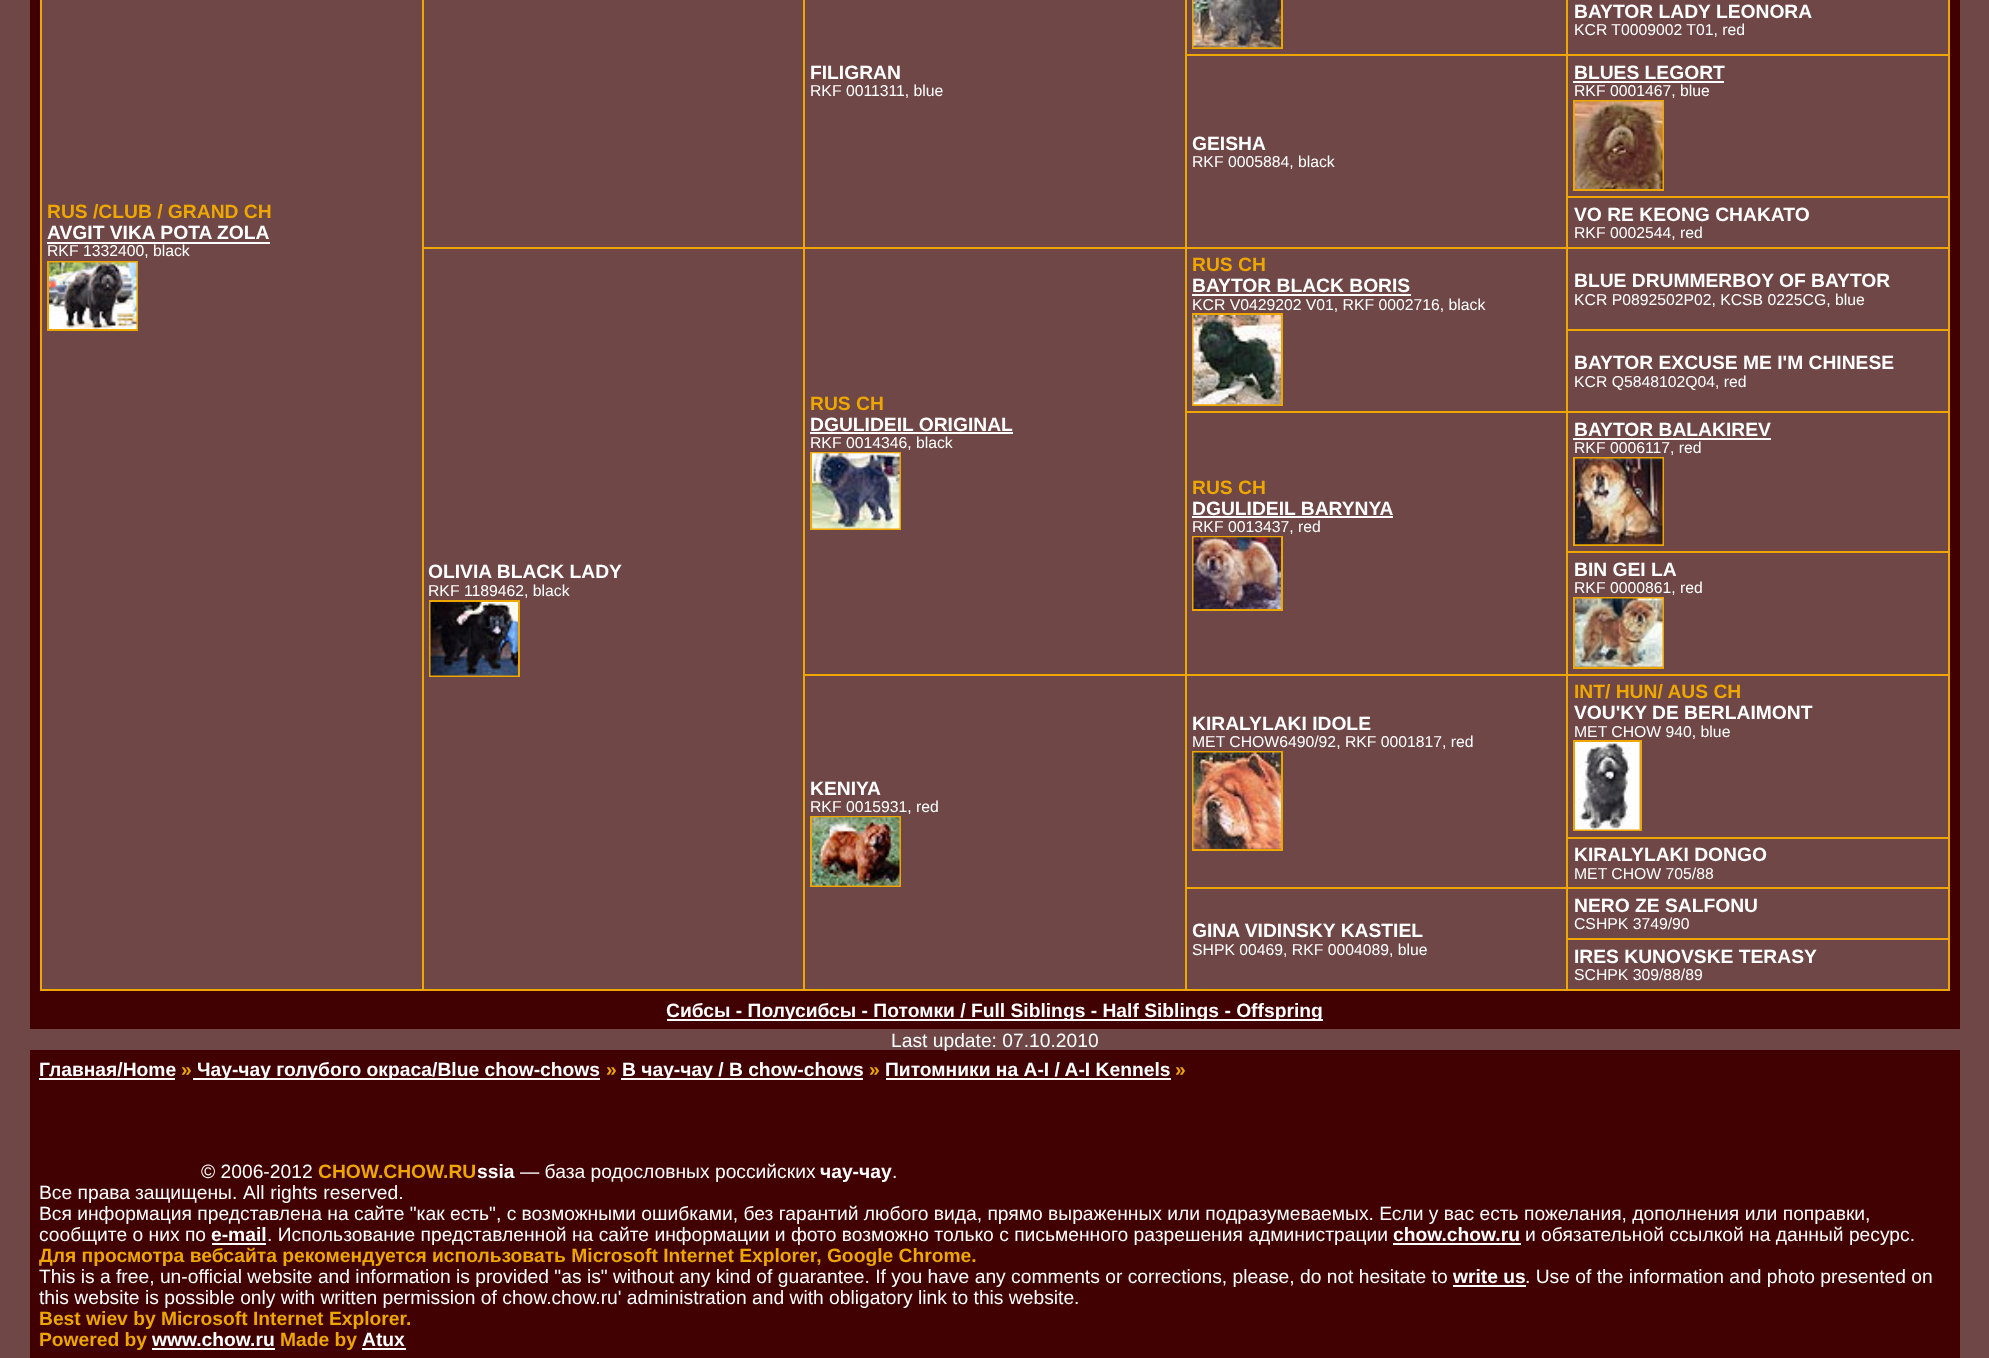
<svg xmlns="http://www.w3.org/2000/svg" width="1989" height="1358">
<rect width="100%" height="100%" fill="#6f4747"/>
<rect x="30" width="1930" height="1029" fill="#410102"/>
<rect x="42" width="1906" height="989" fill="#6f4747"/>
<rect x="1948" width="2" height="991" fill="#eda700"/>
<rect x="40" y="989" width="1910" height="2" fill="#eda700"/>
<rect x="40" width="2" height="991" fill="#eda700"/>
<rect x="1566" y="54" width="384" height="2" fill="#eda700"/>
<rect x="1566" y="196" width="384" height="2" fill="#eda700"/>
<rect x="1566" y="247" width="384" height="2" fill="#eda700"/>
<rect x="1566" y="329" width="384" height="2" fill="#eda700"/>
<rect x="1566" y="411" width="384" height="2" fill="#eda700"/>
<rect x="1566" y="551" width="384" height="2" fill="#eda700"/>
<rect x="1566" y="674" width="384" height="2" fill="#eda700"/>
<rect x="1566" y="837" width="384" height="2" fill="#eda700"/>
<rect x="1566" y="887" width="384" height="2" fill="#eda700"/>
<rect x="1566" y="938" width="384" height="2" fill="#eda700"/>
<rect x="1566" y="938" width="2" height="53" fill="#eda700"/>
<rect x="1566" y="887" width="2" height="53" fill="#eda700"/>
<rect x="1185" y="887" width="383" height="2" fill="#eda700"/>
<rect x="1566" y="837" width="2" height="52" fill="#eda700"/>
<rect x="1566" y="674" width="2" height="164" fill="#eda700"/>
<rect x="1185" y="674" width="383" height="2" fill="#eda700"/>
<rect x="1566" y="551" width="2" height="125" fill="#eda700"/>
<rect x="1566" y="411" width="2" height="142" fill="#eda700"/>
<rect x="1185" y="411" width="383" height="2" fill="#eda700"/>
<rect x="1566" y="329" width="2" height="84" fill="#eda700"/>
<rect x="1566" y="247" width="2" height="84" fill="#eda700"/>
<rect x="1185" y="247" width="383" height="2" fill="#eda700"/>
<rect x="1566" y="196" width="2" height="53" fill="#eda700"/>
<rect x="1566" y="54" width="2" height="144" fill="#eda700"/>
<rect x="1185" y="54" width="383" height="2" fill="#eda700"/>
<rect x="1566" width="2" height="56" fill="#eda700"/>
<text x="1574" y="18" style="font-family:Liberation Sans;font-size:19.25px;font-weight:bold;fill:#fff">BAYTOR LADY LEONORA</text>
<text x="1574" y="35" style="font-family:Liberation Sans;font-size:15.75px;fill:#fff">KCR T0009002 T01, red</text>
<rect x="1193" y="-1" width="89" height="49" fill="none" stroke="#eda700" stroke-width="2"/>
<image x="1193" y="0" width="88" height="48" href="media/1.png"/>
<rect x="1185" y="887" width="2" height="104" fill="#eda700"/>
<rect x="1185" y="674" width="2" height="215" fill="#eda700"/>
<rect x="803" y="674" width="384" height="2" fill="#eda700"/>
<rect x="1185" y="411" width="2" height="265" fill="#eda700"/>
<rect x="1185" y="247" width="2" height="166" fill="#eda700"/>
<rect x="803" y="247" width="384" height="2" fill="#eda700"/>
<rect x="803" y="674" width="2" height="317" fill="#eda700"/>
<rect x="803" y="247" width="2" height="429" fill="#eda700"/>
<rect x="422" y="247" width="383" height="2" fill="#eda700"/>
<rect x="803" width="2" height="249" fill="#eda700"/>
<text x="810" y="79" style="font-family:Liberation Sans;font-size:19.25px;font-weight:bold;fill:#fff">FILIGRAN</text>
<text x="810" y="96" style="font-family:Liberation Sans;font-size:15.75px;fill:#fff">RKF 0011311, blue</text>
<text x="1574" y="79" style="font-family:Liberation Sans;font-size:19.25px;font-weight:bold;fill:#fff">BLUES LEGORT</text>
<rect x="1573" y="81" width="151" height="2" fill="#fff"/>
<text x="1574" y="96" style="font-family:Liberation Sans;font-size:15.75px;fill:#fff">RKF 0001467, blue</text>
<rect x="1574" y="101" width="89" height="89" fill="none" stroke="#eda700" stroke-width="2"/>
<image x="1575" y="101" width="88" height="88" href="media/2.png"/>
<rect x="1185" width="2" height="249" fill="#eda700"/>
<text x="1192" y="150" style="font-family:Liberation Sans;font-size:19.25px;font-weight:bold;fill:#fff">GEISHA</text>
<text x="1192" y="167" style="font-family:Liberation Sans;font-size:15.75px;fill:#fff">RKF 0005884, black</text>
<text x="47" y="218" style="font-family:Liberation Sans;font-size:19.25px;font-weight:bold;fill:#eda700">RUS /CLUB / GRAND CH</text>
<text x="47" y="239" style="font-family:Liberation Sans;font-size:19.25px;font-weight:bold;fill:#fff">AVGIT VIKA POTA ZOLA</text>
<rect x="47" y="242" width="223" height="2" fill="#fff"/>
<text x="47" y="256" style="font-family:Liberation Sans;font-size:15.75px;fill:#fff">RKF 1332400, black</text>
<rect x="48" y="262" width="89" height="68" fill="none" stroke="#eda700" stroke-width="2"/>
<image x="49" y="262" width="88" height="67" href="media/3.png"/>
<text x="1574" y="221" style="font-family:Liberation Sans;font-size:19.25px;font-weight:bold;fill:#fff">VO RE KEONG CHAKATO</text>
<text x="1574" y="238" style="font-family:Liberation Sans;font-size:15.75px;fill:#fff">RKF 0002544, red</text>
<text x="1192" y="271" style="font-family:Liberation Sans;font-size:19.25px;font-weight:bold;fill:#eda700">RUS CH</text>
<text x="1192" y="292" style="font-family:Liberation Sans;font-size:19.25px;font-weight:bold;fill:#fff">BAYTOR BLACK BORIS</text>
<rect x="1192" y="294" width="219" height="2" fill="#fff"/>
<text x="1192" y="310" style="font-family:Liberation Sans;font-size:15.75px;fill:#fff">KCR V0429202 V01, RKF 0002716, black</text>
<rect x="1193" y="314" width="89" height="91" fill="none" stroke="#eda700" stroke-width="2"/>
<image x="1193" y="315" width="88" height="90" href="media/4.png"/>
<text x="1574" y="287" style="font-family:Liberation Sans;font-size:19.25px;font-weight:bold;fill:#fff">BLUE DRUMMERBOY OF BAYTOR</text>
<text x="1574" y="305" style="font-family:Liberation Sans;font-size:15.75px;fill:#fff">KCR P0892502P02, KCSB 0225CG, blue</text>
<text x="810" y="410" style="font-family:Liberation Sans;font-size:19.25px;font-weight:bold;fill:#eda700">RUS CH</text>
<text x="810" y="431" style="font-family:Liberation Sans;font-size:19.25px;font-weight:bold;fill:#fff">DGULIDEIL ORIGINAL</text>
<rect x="810" y="432" width="203" height="2" fill="#fff"/>
<text x="810" y="448" style="font-family:Liberation Sans;font-size:15.75px;fill:#fff">RKF 0014346, black</text>
<rect x="811" y="453" width="89" height="76" fill="none" stroke="#eda700" stroke-width="2"/>
<image x="812" y="453" width="88" height="76" href="media/5.png"/>
<rect x="422" width="2" height="991" fill="#eda700"/>
<text x="428" y="578" style="font-family:Liberation Sans;font-size:19.25px;font-weight:bold;fill:#fff">OLIVIA BLACK LADY</text>
<text x="428" y="596" style="font-family:Liberation Sans;font-size:15.75px;fill:#fff">RKF 1189462, black</text>
<rect x="430" y="601" width="89" height="75" fill="none" stroke="#eda700" stroke-width="2"/>
<image x="430" y="602" width="88" height="74" href="media/6.png"/>
<text x="1574" y="369" style="font-family:Liberation Sans;font-size:19.25px;font-weight:bold;fill:#fff">BAYTOR EXCUSE ME I'M CHINESE</text>
<text x="1574" y="387" style="font-family:Liberation Sans;font-size:15.75px;fill:#fff">KCR Q5848102Q04, red</text>
<text x="1574" y="436" style="font-family:Liberation Sans;font-size:19.25px;font-weight:bold;fill:#fff">BAYTOR BALAKIREV</text>
<rect x="1573" y="438" width="198" height="2" fill="#fff"/>
<text x="1574" y="453" style="font-family:Liberation Sans;font-size:15.75px;fill:#fff">RKF 0006117, red</text>
<rect x="1574" y="458" width="89" height="87" fill="none" stroke="#eda700" stroke-width="2"/>
<image x="1575" y="458" width="88" height="87" href="media/7.png"/>
<text x="1192" y="494" style="font-family:Liberation Sans;font-size:19.25px;font-weight:bold;fill:#eda700">RUS CH</text>
<text x="1192" y="515" style="font-family:Liberation Sans;font-size:19.25px;font-weight:bold;fill:#fff">DGULIDEIL BARYNYA</text>
<rect x="1192" y="516" width="201" height="2" fill="#fff"/>
<text x="1192" y="532" style="font-family:Liberation Sans;font-size:15.75px;fill:#fff">RKF 0013437, red</text>
<rect x="1193" y="537" width="89" height="73" fill="none" stroke="#eda700" stroke-width="2"/>
<image x="1193" y="537" width="88" height="72" href="media/8.png"/>
<text x="1574" y="576" style="font-family:Liberation Sans;font-size:19.25px;font-weight:bold;fill:#fff">BIN GEI LA</text>
<text x="1574" y="593" style="font-family:Liberation Sans;font-size:15.75px;fill:#fff">RKF 0000861, red</text>
<rect x="1574" y="598" width="89" height="70" fill="none" stroke="#eda700" stroke-width="2"/>
<image x="1575" y="598" width="88" height="69" href="media/9.png"/>
<text x="1192" y="730" style="font-family:Liberation Sans;font-size:19.25px;font-weight:bold;fill:#fff">KIRALYLAKI IDOLE</text>
<text x="1192" y="747" style="font-family:Liberation Sans;font-size:15.75px;fill:#fff">MET CHOW6490/92, RKF 0001817, red</text>
<rect x="1193" y="752" width="89" height="98" fill="none" stroke="#eda700" stroke-width="2"/>
<image x="1193" y="752" width="88" height="97" href="media/10.png"/>
<text x="1574" y="698" style="font-family:Liberation Sans;font-size:19.25px;font-weight:bold;fill:#eda700">INT/ HUN/ AUS CH</text>
<text x="1574" y="719" style="font-family:Liberation Sans;font-size:19.25px;font-weight:bold;fill:#fff">VOU'KY DE BERLAIMONT</text>
<text x="1574" y="737" style="font-family:Liberation Sans;font-size:15.75px;fill:#fff">MET CHOW 940, blue</text>
<rect x="1574" y="741" width="67" height="89" fill="none" stroke="#eda700" stroke-width="2"/>
<image x="1575" y="742" width="65" height="88" href="media/11.png"/>
<text x="810" y="795" style="font-family:Liberation Sans;font-size:19.25px;font-weight:bold;fill:#fff">KENIYA</text>
<text x="810" y="812" style="font-family:Liberation Sans;font-size:15.75px;fill:#fff">RKF 0015931, red</text>
<rect x="811" y="817" width="89" height="69" fill="none" stroke="#eda700" stroke-width="2"/>
<image x="812" y="817" width="88" height="69" href="media/12.png"/>
<text x="1574" y="861" style="font-family:Liberation Sans;font-size:19.25px;font-weight:bold;fill:#fff">KIRALYLAKI DONGO</text>
<text x="1574" y="879" style="font-family:Liberation Sans;font-size:15.75px;fill:#fff">MET CHOW 705/88</text>
<text x="1574" y="912" style="font-family:Liberation Sans;font-size:19.25px;font-weight:bold;fill:#fff">NERO ZE SALFONU</text>
<text x="1574" y="929" style="font-family:Liberation Sans;font-size:15.75px;fill:#fff">CSHPK 3749/90</text>
<text x="1192" y="937" style="font-family:Liberation Sans;font-size:19.25px;font-weight:bold;fill:#fff">GINA VIDINSKY KASTIEL</text>
<text x="1192" y="955" style="font-family:Liberation Sans;font-size:15.75px;fill:#fff">SHPK 00469, RKF 0004089, blue</text>
<text x="1574" y="963" style="font-family:Liberation Sans;font-size:19.25px;font-weight:bold;fill:#fff">IRES KUNOVSKE TERASY</text>
<text x="1574" y="980" style="font-family:Liberation Sans;font-size:15.75px;fill:#fff">SCHPK 309/88/89</text>
<rect x="667" y="1019" width="656" height="2" fill="#fff"/>
<text x="666" y="1017" style="font-family:Liberation Sans;font-size:19.25px;font-weight:bold;fill:#fff">Сибсы - Полусибсы - Потомки / Full Siblings - Half Siblings - Offspring</text>
<rect x="30" y="1050" width="1930" height="308" fill="#410102"/>
<text x="891" y="1047" style="font-family:Liberation Sans;font-size:19.25px;fill:#fff">Last update: 07.10.2010</text>
<text x="39" y="1076" style="font-family:Liberation Sans;font-size:19.25px;font-weight:bold;fill:#fff">Главная/Home</text>
<rect x="39" y="1078" width="136" height="2" fill="#fff"/>
<text x="181" y="1076" style="font-family:Liberation Sans;font-size:19.25px;font-weight:bold;fill:#eda700">»</text>
<rect x="193" y="1078" width="407" height="2" fill="#fff"/>
<text x="197" y="1076" style="font-family:Liberation Sans;font-size:19.25px;font-weight:bold;fill:#fff">Чау-чау голубого окраса/Blue chow-chows</text>
<text x="606" y="1076" style="font-family:Liberation Sans;font-size:19.25px;font-weight:bold;fill:#eda700">»</text>
<rect x="621" y="1078" width="242" height="2" fill="#fff"/>
<text x="622" y="1076" style="font-family:Liberation Sans;font-size:19.25px;font-weight:bold;fill:#fff">B чау-чау / B chow-chows</text>
<text x="869" y="1076" style="font-family:Liberation Sans;font-size:19.25px;font-weight:bold;fill:#eda700">»</text>
<text x="885" y="1076" style="font-family:Liberation Sans;font-size:19.25px;font-weight:bold;fill:#fff">Питомники на А-I / A-I Kennels</text>
<rect x="886" y="1078" width="285" height="2" fill="#fff"/>
<text x="1175" y="1076" style="font-family:Liberation Sans;font-size:19.25px;font-weight:bold;fill:#eda700">»</text>
<text x="201" y="1178" style="font-family:Liberation Sans;font-size:19.25px;fill:#fff">© 2006-2012</text>
<text x="318" y="1178" style="font-family:Liberation Sans;font-size:19.25px;font-weight:bold;fill:#eda700">CHOW.CHOW.RU</text>
<text x="477" y="1178" style="font-family:Liberation Sans;font-size:19.25px;font-weight:bold;fill:#fff">ssia</text>
<text x="520" y="1178" style="font-family:Liberation Sans;font-size:19.25px;fill:#fff">— база родословных российских</text>
<text x="820" y="1178" style="font-family:Liberation Sans;font-size:19.25px;font-weight:bold;fill:#fff">чау-чау</text>
<text x="892" y="1178" style="font-family:Liberation Sans;font-size:19.25px;fill:#fff">.</text>
<text x="39" y="1199" style="font-family:Liberation Sans;font-size:19.25px;fill:#fff">Все права</text>
<text x="135" y="1199" word-spacing="0.5" style="font-family:Liberation Sans;font-size:19.25px;fill:#fff">защищены. All rights reserved.</text>
<text x="39" y="1220" style="font-family:Liberation Sans;font-size:19.25px;fill:#fff">Вся информация представлена на сайте "как есть", с возможными ошибками, без гарантий любого вида, прямо выраженных или подразумеваемых. Если у вас есть пожелания, дополнения или поправки,</text>
<text x="39" y="1241" style="font-family:Liberation Sans;font-size:19.25px;fill:#fff">сообщите о них по</text>
<text x="211" y="1241" style="font-family:Liberation Sans;font-size:19.25px;font-weight:bold;fill:#fff">e-mail</text>
<rect x="212" y="1243" width="54" height="2" fill="#fff"/>
<text x="267" y="1241" style="font-family:Liberation Sans;font-size:19.25px;fill:#fff">. Использование представленной на сайте информации и фото возможно только c письменного разрешения администрации</text>
<text x="1393" y="1241" style="font-family:Liberation Sans;font-size:19.25px;font-weight:bold;fill:#fff">chow.chow.ru</text>
<rect x="1393" y="1243" width="128" height="2" fill="#fff"/>
<text x="1525" y="1241" style="font-family:Liberation Sans;font-size:19.25px;fill:#fff">и обязательной ссылкой на данный ресурс.</text>
<text x="39" y="1262" style="font-family:Liberation Sans;font-size:19.25px;font-weight:bold;fill:#eda700">Для просмотра вебсайта рекомендуется использовать Microsoft Internet Explorer, Google Chrome.</text>
<text x="39" y="1283" style="font-family:Liberation Sans;font-size:19.25px;fill:#fff">This is a free, un-official website and information is provided "as is" without any kind of guarantee. If you have any comments or corrections, please, do not hesitate to</text>
<text x="1453" y="1283" style="font-family:Liberation Sans;font-size:19.25px;font-weight:bold;fill:#fff">write us</text>
<rect x="1453" y="1285" width="73" height="2" fill="#fff"/>
<text x="1525" y="1283" style="font-family:Liberation Sans;font-size:19.25px;fill:#fff">. Use of the information and photo presented on</text>
<text x="39" y="1304" style="font-family:Liberation Sans;font-size:19.25px;fill:#fff">this website is possible only with written permission of chow.chow.ru' administration and with obligatory link to this website.</text>
<text x="39" y="1325" style="font-family:Liberation Sans;font-size:19.25px;font-weight:bold;fill:#eda700">Best wiev by Microsoft Internet Explorer.</text>
<text x="39" y="1346" style="font-family:Liberation Sans;font-size:19.25px;font-weight:bold;fill:#eda700">Powered by</text>
<text x="152" y="1346" style="font-family:Liberation Sans;font-size:19.25px;font-weight:bold;fill:#fff">www.chow.ru</text>
<rect x="152" y="1348" width="123" height="2" fill="#fff"/>
<text x="280" y="1346" style="font-family:Liberation Sans;font-size:19.25px;font-weight:bold;fill:#eda700">Made by</text>
<text x="362" y="1346" style="font-family:Liberation Sans;font-size:19.25px;font-weight:bold;fill:#fff">Atux</text>
<rect x="362" y="1348" width="44" height="2" fill="#fff"/>
</svg>
